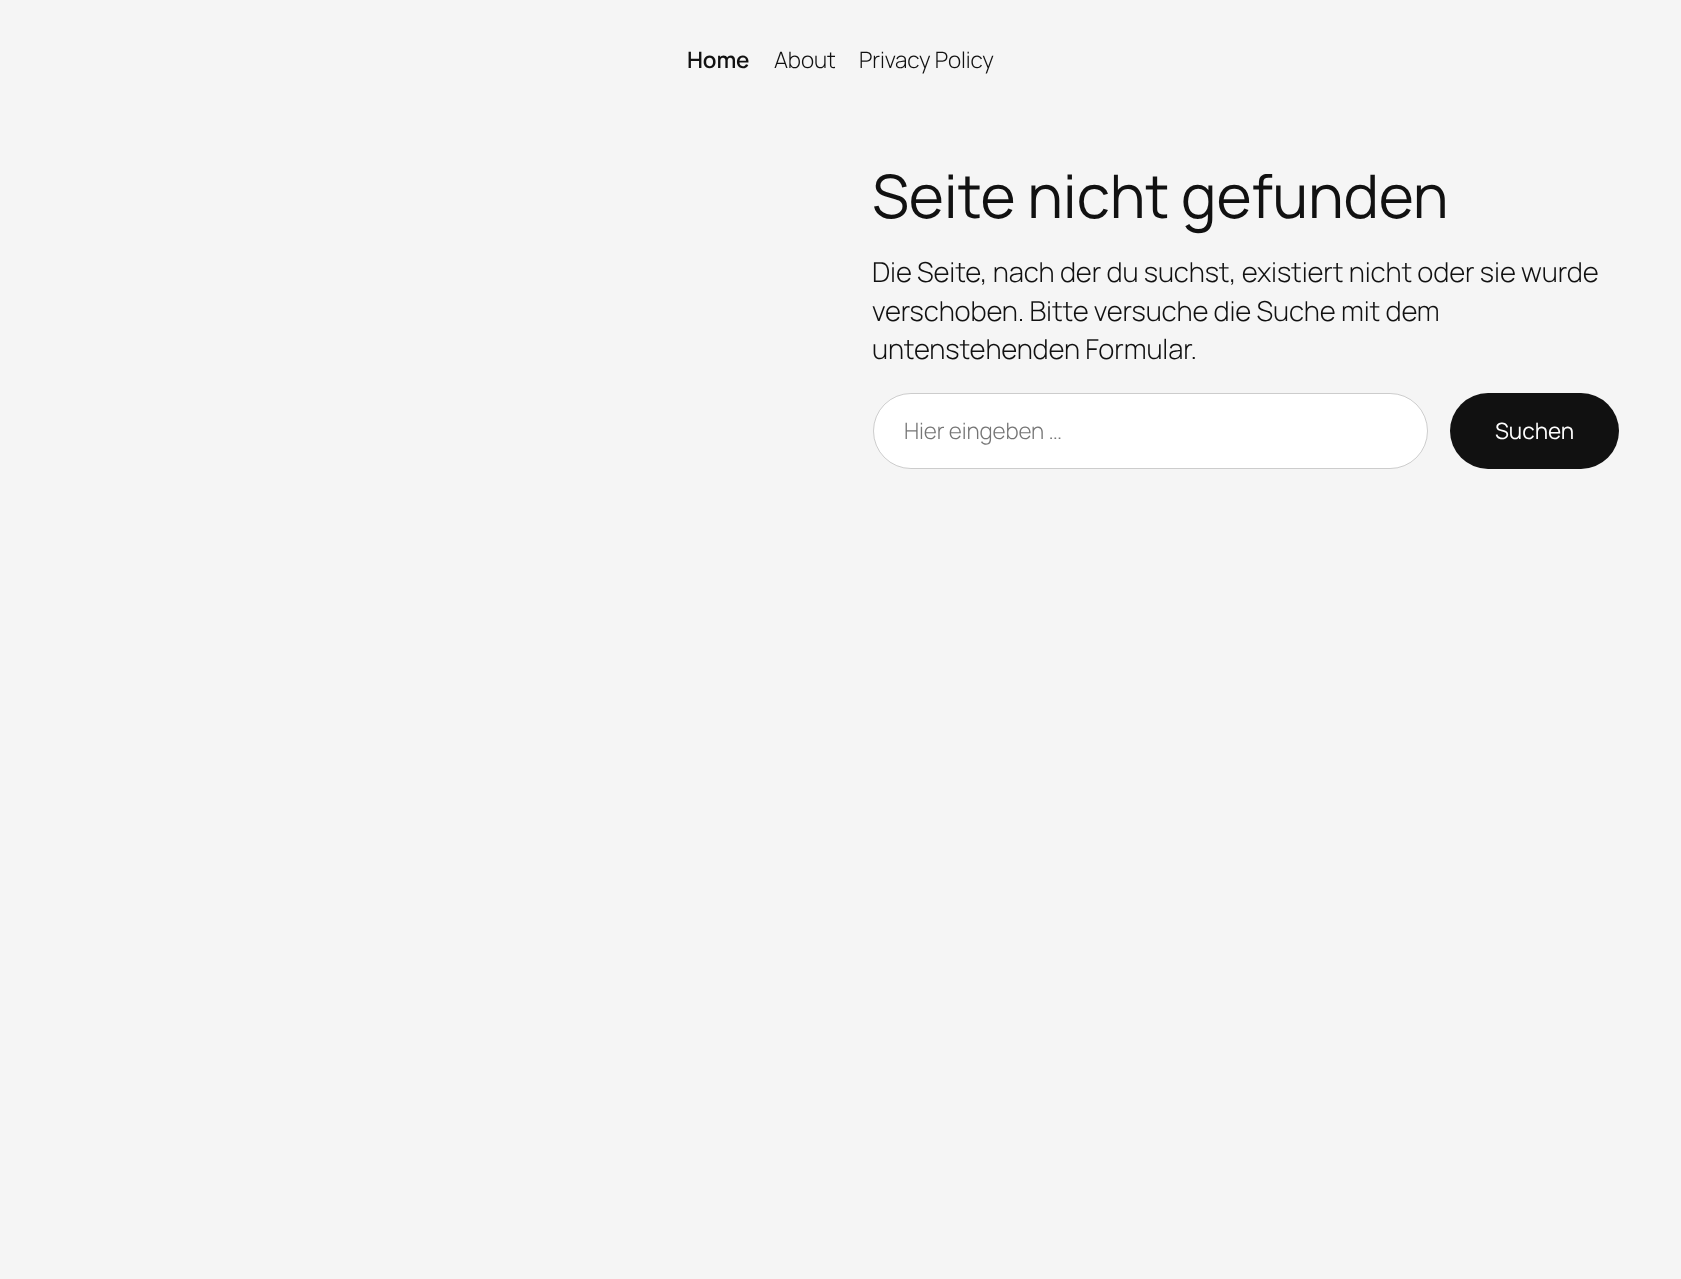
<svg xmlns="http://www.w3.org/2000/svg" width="1681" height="1279">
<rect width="100%" height="100%" fill="#f5f5f5"/>
<text x="687" y="68" style="font-family:Manrope;font-size:22.5px;font-weight:600;letter-spacing:-0.12px;fill:#111">Home</text>
<text x="774" y="68" style="font-family:Manrope;font-size:22.5px;font-weight:300;letter-spacing:-0.12px;fill:#111">About</text>
<text x="859" y="68" style="font-family:Manrope;font-size:22.5px;font-weight:300;letter-spacing:-0.12px;fill:#111">Privacy Policy</text>
<text x="872" y="218" style="font-family:Manrope;font-size:60px;letter-spacing:-0.12px;fill:#111">Seite nicht gefunden</text>
<text x="872" y="282" style="font-family:Manrope;font-size:27.5px;font-weight:300;letter-spacing:-0.12px;fill:#111">Die Seite, nach der du suchst, existiert nicht oder sie wurde</text>
<text x="872" y="321" style="font-family:Manrope;font-size:27.5px;font-weight:300;letter-spacing:-0.12px;fill:#111">verschoben. Bitte versuche die Suche mit dem</text>
<text x="872" y="359" style="font-family:Manrope;font-size:27.5px;font-weight:300;letter-spacing:-0.12px;fill:#111">untenstehenden Formular.</text>
<rect x="873" y="393" width="555" height="76" rx="38" fill="#fff"/>
<rect x="873.5" y="393.5" width="554" height="75" rx="37.5" fill="none" stroke="#00000033"/>
<text x="904" y="439" style="font-family:Manrope;font-size:22.5px;font-weight:300;letter-spacing:-0.12px;fill:#757575">Hier eingeben …</text>
<rect x="1450" y="393" width="169" height="76" rx="38" fill="#111"/>
<text x="1495" y="439" style="font-family:Manrope;font-size:22.5px;fill:#fff">Suchen</text>
</svg>
